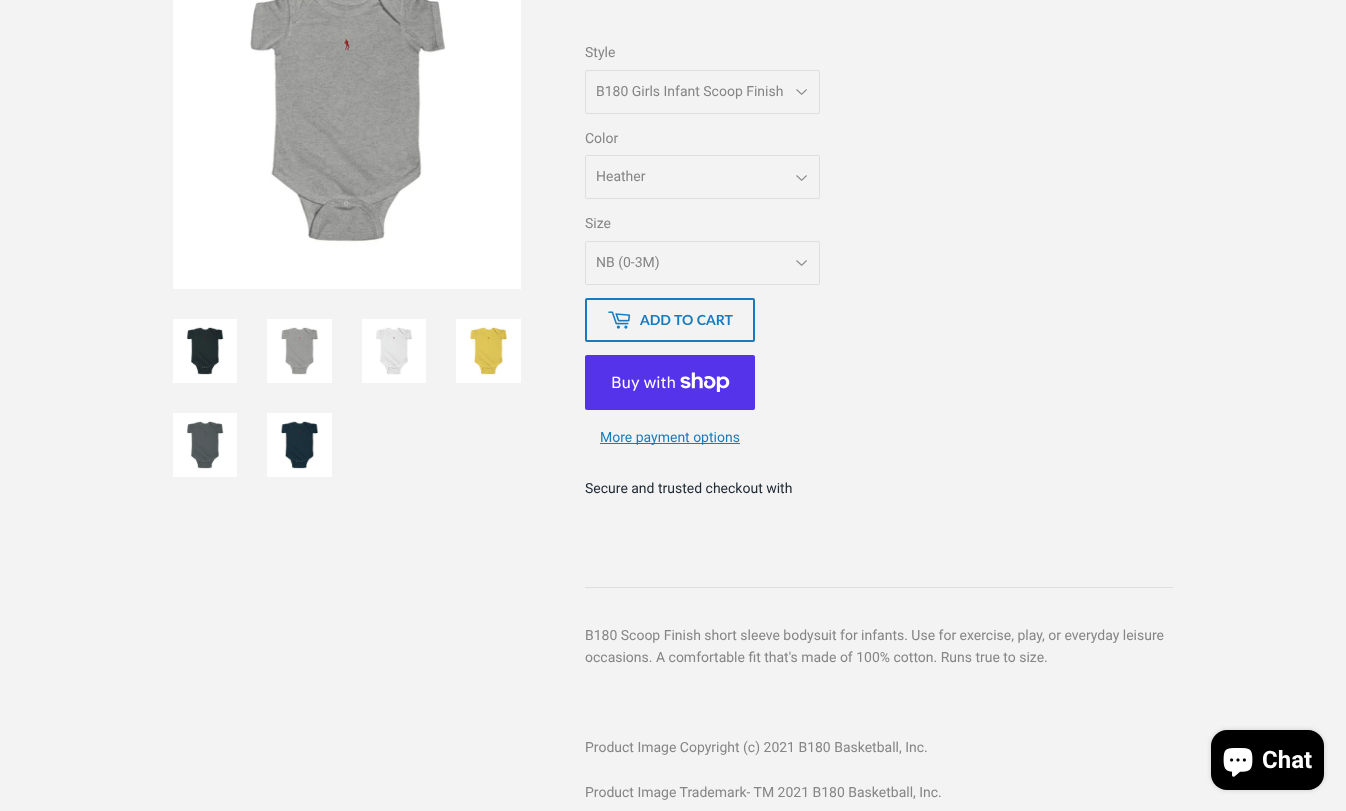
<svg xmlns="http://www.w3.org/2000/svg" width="1346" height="811">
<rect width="100%" height="100%" fill="#f3f3f3"/>
<image x="173" y="0" width="348" height="289" href="media/1.png"/>
<image x="173" y="319" width="64" height="64" href="media/2.png"/>
<image x="267" y="319" width="65" height="64" href="media/3.png"/>
<image x="362" y="319" width="64" height="64" href="media/4.png"/>
<image x="456" y="319" width="65" height="64" href="media/5.png"/>
<image x="173" y="413" width="64" height="64" href="media/6.png"/>
<image x="267" y="413" width="65" height="64" href="media/7.png"/>
<text x="585" y="57" style="font-family:Roboto;font-size:14px;fill:#858585">Style</text>
<image x="796" y="89" width="11" height="6" href="media/8.png"/>
<rect x="585.5" y="70.5" width="234" height="43" rx="1.5" fill="none" stroke="#dedede"/>
<text x="596" y="96" style="font-family:Roboto;font-size:14px;fill:#858585">B180 Girls Infant Scoop Finish</text>
<text x="585" y="143" style="font-family:Roboto;font-size:14px;fill:#858585">Color</text>
<image x="796" y="175" width="11" height="6" href="media/8.png"/>
<rect x="585.5" y="155.5" width="234" height="43" rx="1.5" fill="none" stroke="#dedede"/>
<text x="596" y="181" style="font-family:Roboto;font-size:14px;fill:#858585">Heather</text>
<text x="585" y="228" style="font-family:Roboto;font-size:14px;fill:#858585">Size</text>
<image x="796" y="260" width="11" height="6" href="media/8.png"/>
<rect x="585.5" y="241.5" width="234" height="43" rx="1.5" fill="none" stroke="#dedede"/>
<text x="596" y="267" style="font-family:Roboto;font-size:14px;fill:#858585">NB (0-3M)</text>
<rect x="586" y="299" width="168" height="42" rx="1" fill="none" stroke="#197bbd" stroke-width="2"/>
<image x="608" y="311" width="23" height="18" href="media/9.png"/>
<text x="640" y="325" style="font-family:Lato;font-size:14px;font-weight:bold;fill:#197bbd">ADD TO CART</text>
<rect x="585" y="355" width="170" height="55" rx="2" fill="#5433eb"/>
<text x="611" y="388" style="font-family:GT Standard;font-size:16px;fill:#fff">Buy with</text>
<image x="680" y="372" width="50" height="20" href="media/10.png"/>
<rect x="600" y="443" width="140" height="1" fill="#197bbd"/>
<text x="600" y="442" style="font-family:Roboto;font-size:14px;fill:#197bbd">More payment options</text>
<text x="585" y="493" style="font-family:Roboto;font-size:14px;fill:#212b35">Secure and trusted checkout with</text>
<rect x="585" y="587" width="588" height="1" fill="#dedede"/>
<text x="585" y="640" style="font-family:Roboto;font-size:14px;fill:#858585">B180 Scoop Finish short sleeve bodysuit for infants. Use for exercise, play, or everyday leisure</text>
<text x="585" y="662" style="font-family:Roboto;font-size:14px;fill:#858585">occasions. A comfortable fit that's made of 100% cotton. Runs true to size.</text>
<text x="585" y="752" style="font-family:Roboto;font-size:14px;fill:#858585">Product Image Copyright (c) 2021 B180 Basketball, Inc.</text>
<text x="585" y="797" style="font-family:Roboto;font-size:14px;fill:#858585">Product Image Trademark- TM 2021 B180 Basketball, Inc.</text>
<rect x="1211" y="730" width="113" height="60" rx="16" fill="#00000026" filter="blur(2.5px)"/>
<rect x="1211" y="730" width="113" height="60" rx="16" fill="#000"/>
<image x="1223" y="748" width="30" height="29" href="media/11.png"/>
<text x="1262" y="768" style="font-family:Roboto;font-size:24px;font-weight:bold;fill:#fff">Chat</text>
</svg>
